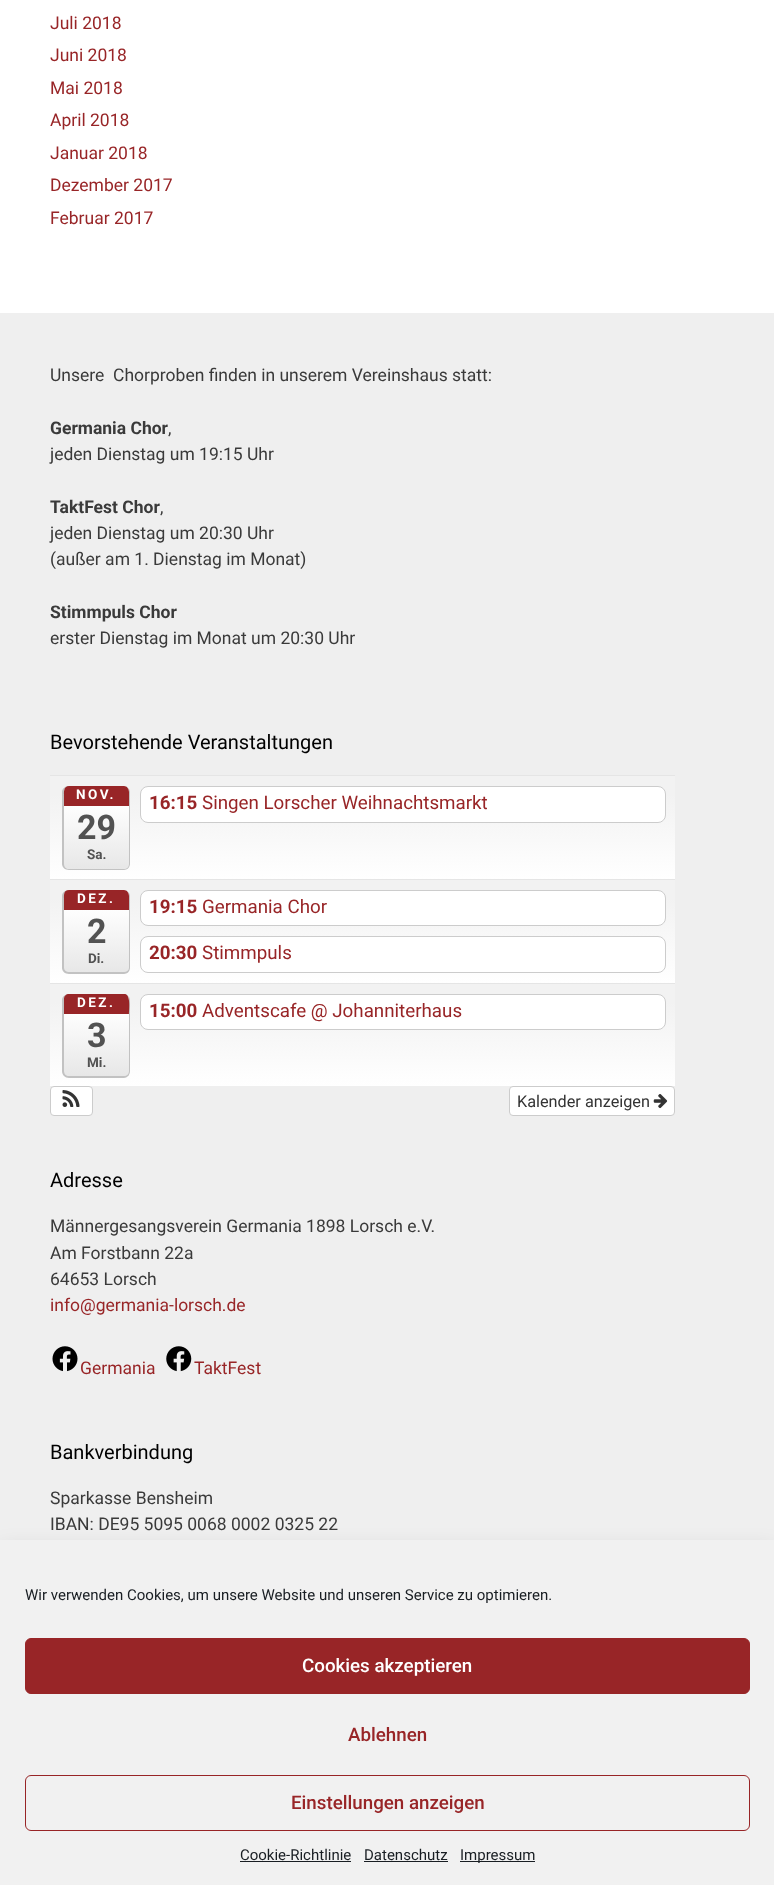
<svg xmlns="http://www.w3.org/2000/svg" width="774" height="1885">
<defs>
<linearGradient id="g1" gradientUnits="userSpaceOnUse" x1="363" y1="776" x2="363" y2="879"><stop offset="0" stop-color="#f2f2f2"/><stop offset="0.18" stop-color="#f2f2f2"/><stop offset="1" stop-color="#fff"/></linearGradient>
<clipPath id="clip1"><rect x="63" y="786" width="67" height="84" rx="6"/></clipPath>
<linearGradient id="g2" gradientUnits="userSpaceOnUse" x1="96" y1="786" x2="96" y2="869"><stop offset="0" stop-color="#fff"/><stop offset="0.2" stop-color="#fff"/><stop offset="1" stop-color="#e7e7e7"/></linearGradient>
<linearGradient id="g3" gradientUnits="userSpaceOnUse" x1="363" y1="880" x2="363" y2="983"><stop offset="0" stop-color="#f2f2f2"/><stop offset="0.18" stop-color="#f2f2f2"/><stop offset="1" stop-color="#fff"/></linearGradient>
<clipPath id="clip2"><rect x="63" y="890" width="67" height="84" rx="6"/></clipPath>
<linearGradient id="g4" gradientUnits="userSpaceOnUse" x1="96" y1="890" x2="96" y2="973"><stop offset="0" stop-color="#fff"/><stop offset="0.2" stop-color="#fff"/><stop offset="1" stop-color="#e7e7e7"/></linearGradient>
<linearGradient id="g5" gradientUnits="userSpaceOnUse" x1="363" y1="984" x2="363" y2="1086"><stop offset="0" stop-color="#f2f2f2"/><stop offset="0.18" stop-color="#f2f2f2"/><stop offset="1" stop-color="#fff"/></linearGradient>
<clipPath id="clip3"><rect x="63" y="994" width="67" height="84" rx="6"/></clipPath>
<linearGradient id="g6" gradientUnits="userSpaceOnUse" x1="96" y1="994" x2="96" y2="1076"><stop offset="0" stop-color="#fff"/><stop offset="0.2" stop-color="#fff"/><stop offset="1" stop-color="#e7e7e7"/></linearGradient>
</defs>
<rect width="100%" height="100%" fill="#fff"/>
<text x="50" y="29" style="font-family:Roboto;font-size:17.5px;fill:#982527">Juli 2018</text>
<text x="50" y="61" style="font-family:Roboto;font-size:17.5px;fill:#982527">Juni 2018</text>
<text x="50" y="94" style="font-family:Roboto;font-size:17.5px;fill:#982527">Mai 2018</text>
<text x="50" y="126" style="font-family:Roboto;font-size:17.5px;fill:#982527">April 2018</text>
<text x="50" y="159" style="font-family:Roboto;font-size:17.5px;fill:#982527">Januar 2018</text>
<text x="50" y="191" style="font-family:Roboto;font-size:17.5px;fill:#982527">Dezember 2017</text>
<text x="50" y="224" style="font-family:Roboto;font-size:17.5px;fill:#982527">Februar 2017</text>
<rect y="313" width="774" height="1227" fill="#efefef"/>
<text x="50" y="381" style="font-family:Roboto;font-size:17.5px;fill:#3a3a3a" xml:space="preserve">Unsere  Chorproben finden in unserem Vereinshaus statt:</text>
<text x="50" y="434" style="font-family:Roboto;font-size:17.5px;font-weight:bold;fill:#3a3a3a">Germania Chor</text>
<text x="168" y="434" style="font-family:Roboto;font-size:17.5px;fill:#3a3a3a">,</text>
<text x="50" y="460" style="font-family:Roboto;font-size:17.5px;fill:#3a3a3a">jeden Dienstag um 19:15 Uhr</text>
<text x="50" y="513" style="font-family:Roboto;font-size:17.5px;font-weight:bold;fill:#3a3a3a">TaktFest Chor</text>
<text x="160" y="513" style="font-family:Roboto;font-size:17.5px;fill:#3a3a3a">,</text>
<text x="50" y="539" style="font-family:Roboto;font-size:17.5px;fill:#3a3a3a">jeden Dienstag um 20:30 Uhr</text>
<text x="50" y="565" style="font-family:Roboto;font-size:17.5px;fill:#3a3a3a">(außer am 1. Dienstag im Monat)</text>
<text x="50" y="618" style="font-family:Roboto;font-size:17.5px;font-weight:bold;fill:#3a3a3a">Stimmpuls Chor</text>
<text x="50" y="644" style="font-family:Roboto;font-size:17.5px;fill:#3a3a3a">erster Dienstag im Monat um 20:30 Uhr</text>
<text x="50" y="749" style="font-family:Roboto;font-size:20px;fill:#000">Bevorstehende Veranstaltungen</text>
<rect x="50" y="776" width="625" height="103" fill="url(#g1)"/>
<rect x="50" y="775" width="625" height="1" fill="#e5e5e5"/>
<g clip-path="url(#clip1)">
<rect x="64" y="786" width="65" height="83" fill="url(#g2)"/>
</g>
<path d="M69 786h55c3 0 6 3 6 6v72c0 3-3 6-6 6h-55c-4 0-7-3-7-6v-72c0-3 3-6 7-6zm0 0h55c3 0 5 3 5 6v72c0 3-2 5-5 5h-55c-3 0-5-2-5-5v-72c0-3 2-6 5-6z" fill="#c2c2c2" fill-rule="evenodd"/>
<path d="M69 786h55c3 0 5 3 5 6v14h-65v-10c0-3-1-10 5-10z" fill="#982527"/>
<text x="76" y="799" style="font-family:Roboto;font-size:13.5px;font-weight:bold;letter-spacing:2.5px;fill:#fff">NOV.</text>
<text x="77" y="839" style="font-family:Roboto;font-size:34px;font-weight:bold;fill:#525252">29</text>
<text x="87" y="859" style="font-family:Roboto;font-size:13.5px;font-weight:bold;fill:#525252">Sa.</text>
<rect x="140.5" y="786.5" width="525" height="36" rx="7.5" fill="#fff" stroke="#ccc"/>
<text x="149" y="809" style="font-family:Roboto;font-size:18.75px;font-weight:bold;fill:#982527">16:15</text>
<text x="202" y="809" style="font-family:Roboto;font-size:18.75px;fill:#982527">Singen Lorscher Weihnachtsmarkt</text>
<rect x="50" y="880" width="625" height="103" fill="url(#g3)"/>
<rect x="50" y="879" width="625" height="1" fill="#e5e5e5"/>
<g clip-path="url(#clip2)">
<rect x="64" y="890" width="65" height="83" fill="url(#g4)"/>
</g>
<path d="M69 890h55c3 0 6 3 6 6v72c0 3-3 6-6 6h-55c-4 0-7-3-7-6v-72c0-3 3-6 7-6zm0 0h55c3 0 5 3 5 6v72c0 2-2 4-5 4h-55c-3 0-5-2-5-4v-72c0-3 2-6 5-6z" fill="#c2c2c2" fill-rule="evenodd"/>
<path d="M69 890h55c3 0 5 3 5 6v14h-65v-10c0-4-1-10 5-10z" fill="#982527"/>
<text x="77" y="903" style="font-family:Roboto;font-size:13.5px;font-weight:bold;letter-spacing:2.5px;fill:#fff">DEZ.</text>
<text x="87" y="943" style="font-family:Roboto;font-size:34px;font-weight:bold;fill:#525252">2</text>
<text x="88" y="963" style="font-family:Roboto;font-size:13.5px;font-weight:bold;fill:#525252">Di.</text>
<rect x="140.5" y="890.5" width="525" height="35" rx="7.5" fill="#fff" stroke="#ccc"/>
<text x="149" y="913" style="font-family:Roboto;font-size:18.75px;font-weight:bold;fill:#982527">19:15</text>
<text x="202" y="913" style="font-family:Roboto;font-size:18.75px;fill:#982527">Germania Chor</text>
<rect x="140.5" y="936.5" width="525" height="36" rx="7.5" fill="#fff" stroke="#ccc"/>
<text x="149" y="959" style="font-family:Roboto;font-size:18.75px;font-weight:bold;fill:#982527">20:30</text>
<text x="202" y="959" style="font-family:Roboto;font-size:18.75px;fill:#982527">Stimmpuls</text>
<rect x="50" y="984" width="625" height="102" fill="url(#g5)"/>
<rect x="50" y="983" width="625" height="1" fill="#e5e5e5"/>
<g clip-path="url(#clip3)">
<rect x="64" y="994" width="65" height="82" fill="url(#g6)"/>
</g>
<path d="M69 994h55c3 0 6 3 6 6v71c0 4-3 7-6 7h-55c-4 0-7-3-7-7v-71c0-3 3-6 7-6zm0 0h55c3 0 5 3 5 6v71c0 3-2 5-5 5h-55c-3 0-5-2-5-5v-71c0-3 2-6 5-6z" fill="#c2c2c2" fill-rule="evenodd"/>
<path d="M69 994h56c6 1 4 16 4 20h-65v-15c0-3 2-5 5-5z" fill="#982527"/>
<text x="77" y="1007" style="font-family:Roboto;font-size:13.5px;font-weight:bold;letter-spacing:2.5px;fill:#fff">DEZ.</text>
<text x="87" y="1047" style="font-family:Roboto;font-size:34px;font-weight:bold;fill:#525252">3</text>
<text x="87" y="1067" style="font-family:Roboto;font-size:13.5px;font-weight:bold;fill:#525252">Mi.</text>
<rect x="140.5" y="994.5" width="525" height="35" rx="7.5" fill="#fff" stroke="#ccc"/>
<text x="149" y="1017" style="font-family:Roboto;font-size:18.75px;font-weight:bold;fill:#982527">15:00</text>
<text x="202" y="1017" style="font-family:Roboto;font-size:18.75px;fill:#982527">Adventscafe @ Johanniterhaus</text>
<rect x="50.5" y="1086.5" width="42" height="29" rx="3.5" fill="#fff" stroke="#ccc"/>
<image x="62" y="1090" width="18" height="17" href="media/1.png"/>
<rect x="509.5" y="1086.5" width="165" height="29" rx="3.5" fill="#fff" stroke="#ccc"/>
<text x="517" y="1107" style="font-family:Roboto;font-size:16.25px;fill:#333">Kalender anzeigen</text>
<image x="653" y="1094" width="15" height="15" href="media/2.png"/>
<text x="50" y="1187" style="font-family:Roboto;font-size:20px;fill:#000">Adresse</text>
<text x="50" y="1232" style="font-family:Roboto;font-size:17.5px;fill:#3a3a3a">Männergesangsverein Germania 1898 Lorsch e.V.</text>
<text x="50" y="1259" style="font-family:Roboto;font-size:17.5px;fill:#3a3a3a">Am Forstbann 22a</text>
<text x="50" y="1285" style="font-family:Roboto;font-size:17.5px;fill:#3a3a3a">64653 Lorsch</text>
<text x="50" y="1311" style="font-family:Roboto;font-size:17.5px;fill:#982527">info@germania-lorsch.de</text>
<image x="52" y="1346" width="26" height="26" href="media/3.png"/>
<text x="80" y="1374" style="font-family:Roboto;font-size:17.5px;fill:#982527">Germania</text>
<image x="166" y="1346" width="26" height="26" href="media/4.png"/>
<text x="194" y="1374" style="font-family:Roboto;font-size:17.5px;fill:#982527">TaktFest</text>
<text x="50" y="1459" style="font-family:Roboto;font-size:20px;fill:#000">Bankverbindung</text>
<text x="50" y="1504" style="font-family:Roboto;font-size:17.5px;fill:#3a3a3a">Sparkasse Bensheim</text>
<text x="50" y="1530" style="font-family:Roboto;font-size:17.5px;fill:#3a3a3a">IBAN: DE95 5095 0068 0002 0325 22</text>
<rect y="1553" width="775" height="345" fill="#00000030" filter="blur(12.5px)"/>
<rect y="1540" width="774" height="345" fill="#f1f1f1"/>
<text x="25" y="1600" style="font-family:Roboto;font-size:15px;fill:#191e23">Wir verwenden Cookies, um unsere Website und unseren Service zu optimieren.</text>
<rect x="25.5" y="1638.5" width="724" height="55" rx="5.5" fill="#982527" stroke="#982527"/>
<text x="302" y="1672" style="font-family:Roboto;font-size:18.75px;font-weight:500;fill:#fff">Cookies akzeptieren</text>
<text x="348" y="1741" style="font-family:Roboto;font-size:18.75px;font-weight:500;fill:#982527">Ablehnen</text>
<rect x="25.5" y="1775.5" width="724" height="55" rx="5.5" fill="none" stroke="#982527"/>
<text x="291" y="1809" style="font-family:Roboto;font-size:18.75px;font-weight:500;fill:#982527">Einstellungen anzeigen</text>
<text x="240" y="1860" style="font-family:Roboto;font-size:15px;fill:#191e23">Cookie-Richtlinie</text>
<rect x="240" y="1861" width="111" height="1" fill="#191e23"/>
<text x="364" y="1860" style="font-family:Roboto;font-size:15px;fill:#191e23">Datenschutz</text>
<rect x="364" y="1861" width="84" height="1" fill="#191e23"/>
<rect x="460" y="1861" width="75" height="1" fill="#191e23"/>
<text x="460" y="1860" style="font-family:Roboto;font-size:15px;fill:#191e23">Impressum</text>
</svg>
